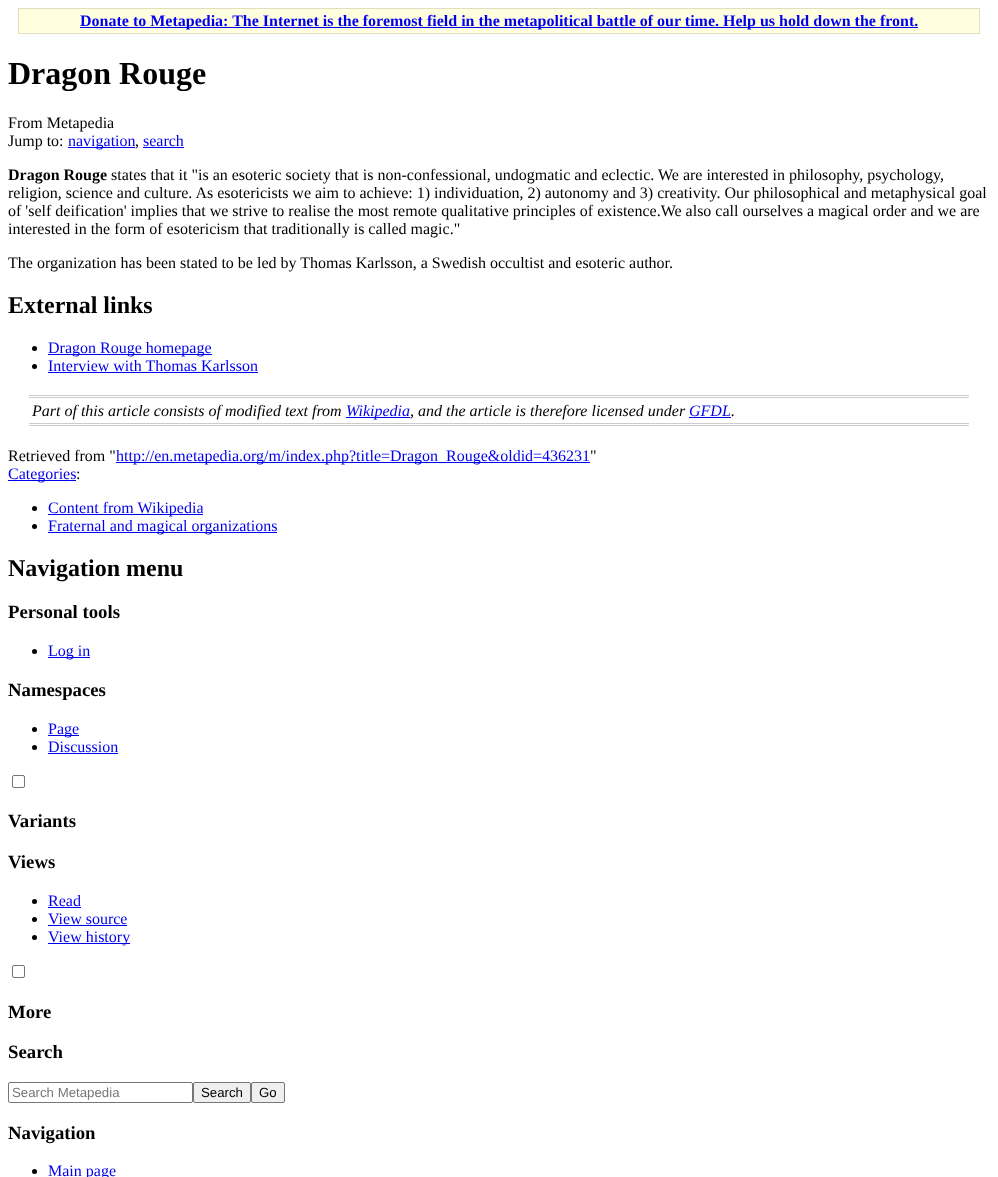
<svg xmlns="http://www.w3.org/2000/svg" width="998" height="1177">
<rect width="100%" height="100%" fill="#fff"/>
<rect x="18.5" y="8.5" width="961" height="25" fill="#ffffe0" stroke="#e0e0c0"/>
<rect x="80" y="27" width="838" height="1" fill="#00e"/>
<text x="80" y="26" style="font-family:Liberation Serif;font-size:16px;font-weight:bold;fill:#00e">Donate to Metapedia: The Internet is the foremost field in the metapolitical battle of our time. Help us hold down the front.</text>
<text x="8" y="84" style="font-family:Liberation Serif;font-size:32px;font-weight:bold;fill:#000">Dragon Rouge</text>
<text x="8" y="128" style="font-family:Liberation Serif;font-size:16px;fill:#000">From Metapedia</text>
<text x="8" y="146" style="font-family:Liberation Serif;font-size:16px;fill:#000">Jump to:</text>
<rect x="68" y="147" width="67" height="1" fill="#00e"/>
<text x="68" y="146" style="font-family:Liberation Serif;font-size:16px;fill:#00e">navigation</text>
<text x="135" y="146" style="font-family:Liberation Serif;font-size:16px;fill:#000">,</text>
<text x="143" y="146" style="font-family:Liberation Serif;font-size:16px;fill:#00e">search</text>
<rect x="143" y="147" width="41" height="1" fill="#00e"/>
<text x="8" y="180" style="font-family:Liberation Serif;font-size:16px;font-weight:bold;fill:#000">Dragon Rouge</text>
<text x="111" y="180" style="font-family:Liberation Serif;font-size:16px;fill:#000">states that it "is an esoteric society that is non-confessional, undogmatic and eclectic. We are interested in philosophy, psychology,</text>
<text x="8" y="198" style="font-family:Liberation Serif;font-size:16px;fill:#000">religion, science and culture. As esotericists we aim to achieve: 1) individuation, 2) autonomy and 3) creativity. Our philosophical and metaphysical goal</text>
<text x="8" y="216" style="font-family:Liberation Serif;font-size:16px;fill:#000">of 'self deification' implies that we strive to realise the most remote qualitative principles of existence.We also call ourselves a magical order and we are</text>
<text x="8" y="234" style="font-family:Liberation Serif;font-size:16px;fill:#000">interested in the form of esotericism that traditionally is called magic."</text>
<text x="8" y="268" style="font-family:Liberation Serif;font-size:16px;fill:#000">The organization has been stated to be led by Thomas Karlsson, a Swedish occultist and esoteric author.</text>
<text x="8" y="313" style="font-family:Liberation Serif;font-size:24px;font-weight:bold;fill:#000">External links</text>
<circle cx="34.5" cy="348.5" r="2.5" fill="#000"/>
<rect x="48" y="354" width="164" height="1" fill="#00e"/>
<text x="48" y="353" style="font-family:Liberation Serif;font-size:16px;fill:#00e">Dragon Rouge homepage</text>
<circle cx="34.5" cy="366.5" r="2.5" fill="#000"/>
<text x="48" y="371" style="font-family:Liberation Serif;font-size:16px;fill:#00e">Interview with Thomas Karlsson</text>
<rect x="48" y="372" width="210" height="1" fill="#00e"/>
<rect x="29" y="395" width="940" height="1" fill="#ccc"/>
<rect x="29" y="397" width="940" height="1" fill="#ccc"/>
<rect x="29" y="423" width="940" height="1" fill="#ccc"/>
<rect x="29" y="425" width="940" height="1" fill="#ccc"/>
<text x="32" y="416" style="font-family:Liberation Serif;font-size:16px;font-style:italic;fill:#000">Part of this article consists of modified text from</text>
<rect x="346" y="417" width="64" height="1" fill="#00e"/>
<text x="346" y="416" style="font-family:Liberation Serif;font-size:16px;font-style:italic;fill:#00e">Wikipedia</text>
<text x="410" y="416" style="font-family:Liberation Serif;font-size:16px;font-style:italic;fill:#000">, and the article is therefore licensed under</text>
<text x="689" y="416" style="font-family:Liberation Serif;font-size:16px;font-style:italic;fill:#00e">GFDL</text>
<text x="731" y="416" style="font-family:Liberation Serif;font-size:16px;font-style:italic;fill:#000">.</text>
<rect x="689" y="417" width="42" height="1" fill="#00e"/>
<text x="8" y="461" style="font-family:Liberation Serif;font-size:16px;fill:#000">Retrieved from "</text>
<rect x="116" y="462" width="474" height="1" fill="#00e"/>
<text x="116" y="461" style="font-family:Liberation Serif;font-size:16px;fill:#00e">http://en.metapedia.org/m/index.php?title=Dragon_Rouge&amp;oldid=436231</text>
<text x="590" y="461" style="font-family:Liberation Serif;font-size:16px;fill:#000">"</text>
<rect x="8" y="480" width="68" height="1" fill="#00e"/>
<text x="8" y="479" style="font-family:Liberation Serif;font-size:16px;fill:#00e">Categories</text>
<text x="76" y="479" style="font-family:Liberation Serif;font-size:16px;fill:#000">:</text>
<circle cx="34.5" cy="508.5" r="2.5" fill="#000"/>
<rect x="48" y="514" width="155" height="1" fill="#00e"/>
<text x="48" y="513" style="font-family:Liberation Serif;font-size:16px;fill:#00e">Content from Wikipedia</text>
<circle cx="34.5" cy="526.5" r="2.5" fill="#000"/>
<rect x="48" y="532" width="229" height="1" fill="#00e"/>
<text x="48" y="531" style="font-family:Liberation Serif;font-size:16px;fill:#00e">Fraternal and magical organizations</text>
<text x="8" y="576" style="font-family:Liberation Serif;font-size:24px;font-weight:bold;fill:#000">Navigation menu</text>
<text x="8" y="618" style="font-family:Liberation Serif;font-size:18.75px;font-weight:bold;fill:#000">Personal tools</text>
<circle cx="34.5" cy="651.5" r="2.5" fill="#000"/>
<rect x="48" y="657" width="42" height="1" fill="#00e"/>
<text x="48" y="656" style="font-family:Liberation Serif;font-size:16px;fill:#00e">Log in</text>
<text x="8" y="696" style="font-family:Liberation Serif;font-size:18.75px;font-weight:bold;fill:#000">Namespaces</text>
<circle cx="34.5" cy="729.5" r="2.5" fill="#000"/>
<rect x="48" y="735" width="31" height="1" fill="#00e"/>
<text x="48" y="734" style="font-family:Liberation Serif;font-size:16px;fill:#00e">Page</text>
<circle cx="34.5" cy="747.5" r="2.5" fill="#000"/>
<text x="48" y="752" style="font-family:Liberation Serif;font-size:16px;fill:#00e">Discussion</text>
<rect x="48" y="753" width="70" height="1" fill="#00e"/>
<rect x="12.5" y="775.5" width="12" height="12" rx="1.5" fill="none" stroke="#767676"/>
<text x="8" y="827" style="font-family:Liberation Serif;font-size:18.75px;font-weight:bold;fill:#000">Variants</text>
<text x="8" y="868" style="font-family:Liberation Serif;font-size:18.75px;font-weight:bold;fill:#000">Views</text>
<circle cx="34.5" cy="901.5" r="2.5" fill="#000"/>
<text x="48" y="906" style="font-family:Liberation Serif;font-size:16px;fill:#00e">Read</text>
<rect x="48" y="907" width="33" height="1" fill="#00e"/>
<circle cx="34.5" cy="919.5" r="2.5" fill="#000"/>
<text x="48" y="924" style="font-family:Liberation Serif;font-size:16px;fill:#00e">View source</text>
<rect x="48" y="925" width="79" height="1" fill="#00e"/>
<circle cx="34.5" cy="937.5" r="2.5" fill="#000"/>
<rect x="48" y="943" width="82" height="1" fill="#00e"/>
<text x="48" y="942" style="font-family:Liberation Serif;font-size:16px;fill:#00e">View history</text>
<rect x="12.5" y="965.5" width="12" height="12" rx="1.5" fill="none" stroke="#767676"/>
<text x="8" y="1018" style="font-family:Liberation Serif;font-size:18.75px;font-weight:bold;fill:#000">More</text>
<text x="8" y="1058" style="font-family:Liberation Serif;font-size:18.75px;font-weight:bold;fill:#000">Search</text>
<rect x="8.5" y="1082.5" width="184" height="20" rx="1.5" fill="none" stroke="#767676"/>
<text x="12" y="1097" style="font-family:Liberation Sans;font-size:13.25px;fill:#757575">Search Metapedia</text>
<rect x="193.5" y="1082.5" width="57" height="20" rx="1.5" fill="#efefef" stroke="#767676"/>
<text x="201" y="1097" style="font-family:Liberation Sans;font-size:13.25px;fill:#000">Search</text>
<rect x="251.5" y="1082.5" width="33" height="20" rx="1.5" fill="#efefef" stroke="#767676"/>
<text x="259" y="1097" style="font-family:Liberation Sans;font-size:13.25px;fill:#000">Go</text>
<text x="8" y="1139" style="font-family:Liberation Serif;font-size:18.75px;font-weight:bold;fill:#000">Navigation</text>
<circle cx="34.5" cy="1171.5" r="2.5" fill="#000"/>
<text x="48" y="1176" style="font-family:Liberation Serif;font-size:16px;fill:#00e">Main page</text>
</svg>
